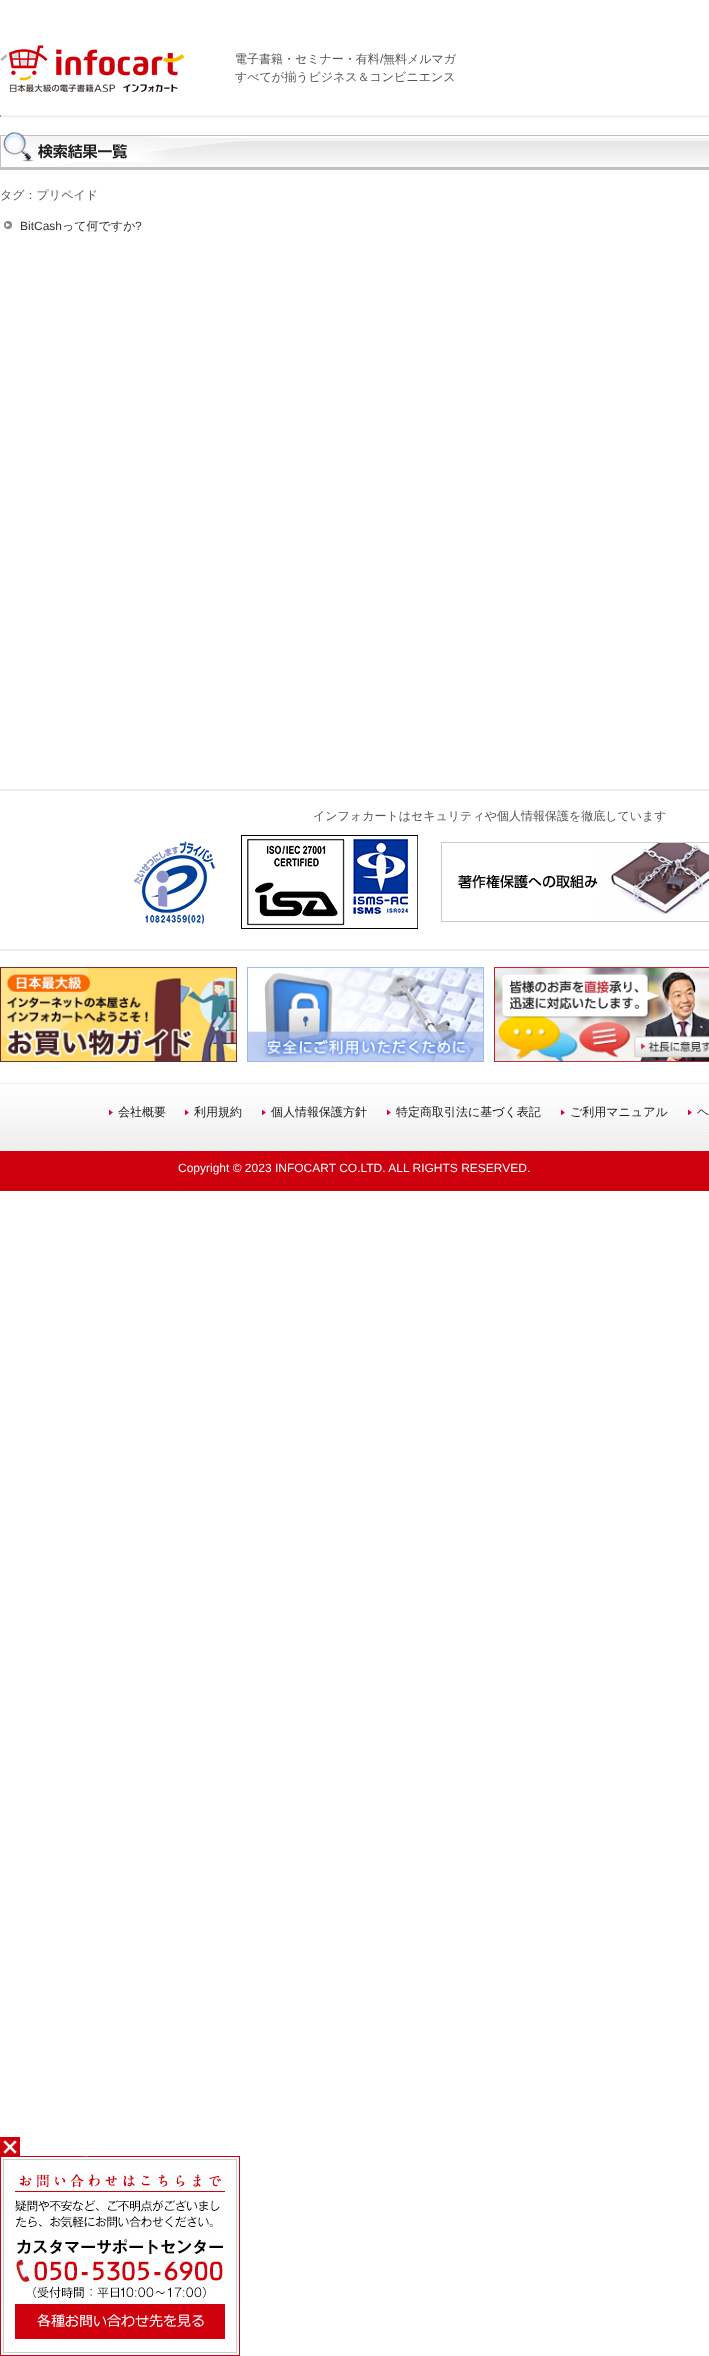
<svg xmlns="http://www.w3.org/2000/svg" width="709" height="2356">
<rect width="100%" height="100%" fill="#fff"/>
<image x="0" y="45" width="185" height="47" href="media/1.png"/>
<text x="235" y="63" style="font-family:WenQuanYi Zen Hei;font-size:12px;font-weight:500;fill:#555">電子書籍・セミナー・有料</text>
<text x="380" y="63" style="font-family:Liberation Sans;font-size:12px;fill:#555">/</text>
<text x="383" y="63" style="font-family:WenQuanYi Zen Hei;font-size:12px;font-weight:500;fill:#555">無料メルマガ</text>
<text x="235" y="81" style="font-family:WenQuanYi Zen Hei;font-size:12px;font-weight:500;fill:#555">すべてが揃うビジネス＆コンビニエンス</text>
<rect y="115" width="709" height="1" fill="#f8f8f8"/>
<rect y="116" width="709" height="1" fill="#e8e8e8"/>
<rect y="115" width="1" height="2" fill="#9f9f9f"/>
<image x="0" y="132" width="709" height="38" href="media/2.png"/>
<text x="0" y="199" style="font-family:WenQuanYi Zen Hei;font-size:12px;font-weight:500;fill:#555">タグ：プリペイド</text>
<image x="4" y="221" width="8" height="8" href="media/3.png"/>
<text x="20" y="230" style="font-family:Liberation Sans;font-size:12px;fill:#333">BitCash</text>
<text x="62" y="230" style="font-family:WenQuanYi Zen Hei;font-size:12px;font-weight:500;fill:#333">って何ですか</text>
<text x="135" y="230" style="font-family:Liberation Sans;font-size:12px;fill:#333">?</text>
<rect y="789" width="709" height="2" fill="#ededed"/>
<rect y="949" width="709" height="2" fill="#ededed"/>
<text x="313" y="820" style="font-family:WenQuanYi Zen Hei;font-size:12px;font-weight:500;fill:#555">インフォカートはセキュリティや個人情報保護を徹底しています</text>
<image x="133" y="841" width="83" height="83" href="media/4.png"/>
<image x="241" y="835" width="177" height="94" href="media/5.png"/>
<image x="441" y="842" width="268" height="80" href="media/6.png"/>
<image x="0" y="967" width="237" height="95" href="media/7.png"/>
<image x="247" y="967" width="237" height="95" href="media/8.png"/>
<image x="494" y="967" width="215" height="95" href="media/9.png"/>
<image x="0" y="1083" width="709" height="68" href="media/10.png"/>
<image x="109" y="1110" width="4" height="5" href="media/11.png"/>
<text x="118" y="1116" style="font-family:WenQuanYi Zen Hei;font-size:12px;font-weight:500;fill:#1c1b1b">会社概要</text>
<image x="185" y="1110" width="4" height="5" href="media/11.png"/>
<text x="194" y="1116" style="font-family:WenQuanYi Zen Hei;font-size:12px;font-weight:500;fill:#1c1b1b">利用規約</text>
<image x="262" y="1110" width="4" height="5" href="media/11.png"/>
<text x="271" y="1116" style="font-family:WenQuanYi Zen Hei;font-size:12px;font-weight:500;fill:#1c1b1b">個人情報保護方針</text>
<image x="387" y="1110" width="4" height="5" href="media/11.png"/>
<text x="396" y="1116" style="font-family:WenQuanYi Zen Hei;font-size:12px;font-weight:500;fill:#1c1b1b">特定商取引法に基づく表記</text>
<image x="561" y="1110" width="4" height="5" href="media/11.png"/>
<text x="570" y="1116" style="font-family:WenQuanYi Zen Hei;font-size:12px;font-weight:500;fill:#1c1b1b">ご利用マニュアル</text>
<image x="688" y="1110" width="4" height="5" href="media/11.png"/>
<text x="697" y="1116" style="font-family:WenQuanYi Zen Hei;font-size:12px;font-weight:500;fill:#1c1b1b">ヘ</text>
<rect y="1151" width="709" height="40" fill="#cf000d"/>
<text x="178" y="1172" style="font-family:Liberation Sans;font-size:12px;fill:#fff">Copyright © 2023 INFOCART CO.LTD. ALL RIGHTS RESERVED.</text>
<image x="0" y="2137" width="20" height="19" href="media/12.png"/>
<image x="0" y="2156" width="240" height="200" href="media/13.png"/>
</svg>
